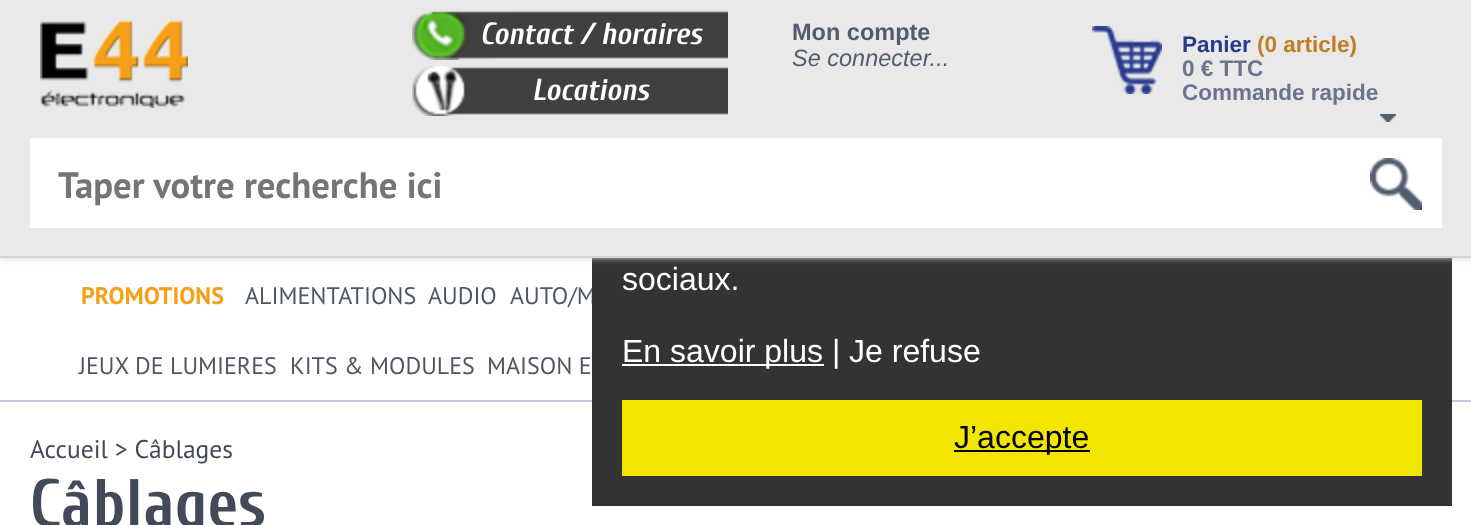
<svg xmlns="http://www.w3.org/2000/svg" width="1471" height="525">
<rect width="100%" height="100%" fill="#fff"/>
<rect y="400" width="1471" height="2" fill="#c3c8df"/>
<text x="510" y="304" style="font-family:PT Sans;font-size:24px;fill:#4f5765">AUTO/M</text>
<rect x="592" y="258" width="860" height="248" fill="#333"/>
<rect width="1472" height="258" fill="#d3d3d3" filter="blur(3px)"/>
<rect width="1471" height="256" fill="#e9e9e9"/>
<rect y="256" width="1471" height="2" fill="#d3d3d3"/>
<image x="40" y="20" width="148" height="88" href="media/1.png"/>
<image x="412" y="11" width="316" height="49" href="media/2.png"/>
<text x="480" y="44" style="font-family:Cuprum;font-size:30.5px;font-weight:bold;font-style:italic;fill:#fff">Contact / horaires</text>
<image x="412" y="66" width="316" height="50" href="media/3.png"/>
<text x="532" y="100" style="font-family:Cuprum;font-size:30.5px;font-weight:bold;font-style:italic;fill:#fff">Locations</text>
<text x="792" y="40" style="font-family:Liberation Sans;font-size:23.5px;font-weight:bold;fill:#515c6e">Mon compte</text>
<text x="792" y="66" style="font-family:Liberation Sans;font-size:23.5px;font-style:italic;fill:#515c6e">Se connecter...</text>
<image x="1092" y="26" width="70" height="68" href="media/4.png"/>
<text x="1182" y="52" style="font-family:Liberation Sans;font-size:22.5px;font-weight:bold;fill:#273a8d">Panier</text>
<text x="1257" y="52" style="font-family:Liberation Sans;font-size:22.5px;font-weight:bold;fill:#bd7e24">(0 article)</text>
<text x="1182" y="76" style="font-family:Liberation Sans;font-size:22.5px;font-weight:bold;fill:#6c738d">0 € TTC</text>
<text x="1182" y="100" style="font-family:Liberation Sans;font-size:22.5px;font-weight:bold;fill:#6c738d">Commande rapide</text>
<image x="1380" y="114" width="16" height="8" href="media/5.png"/>
<rect x="30" y="138" width="1412" height="90" fill="#fff"/>
<text x="58" y="198" style="font-family:PT Sans;font-size:36.75px;font-weight:bold;fill:#757575">Taper votre recherche ici</text>
<image x="1370" y="158" width="52" height="52" href="media/6.png"/>
<text x="81" y="304" style="font-family:PT Sans;font-size:24px;font-weight:bold;fill:#f5a01a">PROMOTIONS</text>
<text x="245" y="304" style="font-family:PT Sans;font-size:24px;fill:#4f5765">ALIMENTATIONS</text>
<text x="428" y="304" style="font-family:PT Sans;font-size:24px;fill:#4f5765">AUDIO</text>
<text x="79" y="374" style="font-family:PT Sans;font-size:24px;fill:#4f5765">JEUX DE LUMIERES</text>
<text x="290" y="374" style="font-family:PT Sans;font-size:24px;fill:#4f5765">KITS &amp; MODULES</text>
<text x="487" y="374" style="font-family:PT Sans;font-size:24px;fill:#4f5765">MAISON E</text>
<text x="622" y="290" style="font-family:Liberation Sans;font-size:32px;fill:#fff">sociaux.</text>
<rect x="622" y="364" width="202" height="2" fill="#fff"/>
<text x="622" y="362" style="font-family:Liberation Sans;font-size:32px;fill:#fff">En savoir plus | Je refuse</text>
<rect x="622" y="400" width="800" height="76" fill="#f2e500"/>
<rect x="954" y="450" width="136" height="2" fill="#000"/>
<text x="954" y="448" style="font-family:Liberation Sans;font-size:32px;fill:#000">J’accepte</text>
<text x="30" y="458" style="font-family:PT Sans;font-size:25.5px;fill:#424a59">Accueil &gt; Câblages</text>
<text x="30" y="526" style="font-family:Cuprum;font-size:67px;font-weight:bold;fill:#424a59">Câblages</text>
</svg>
